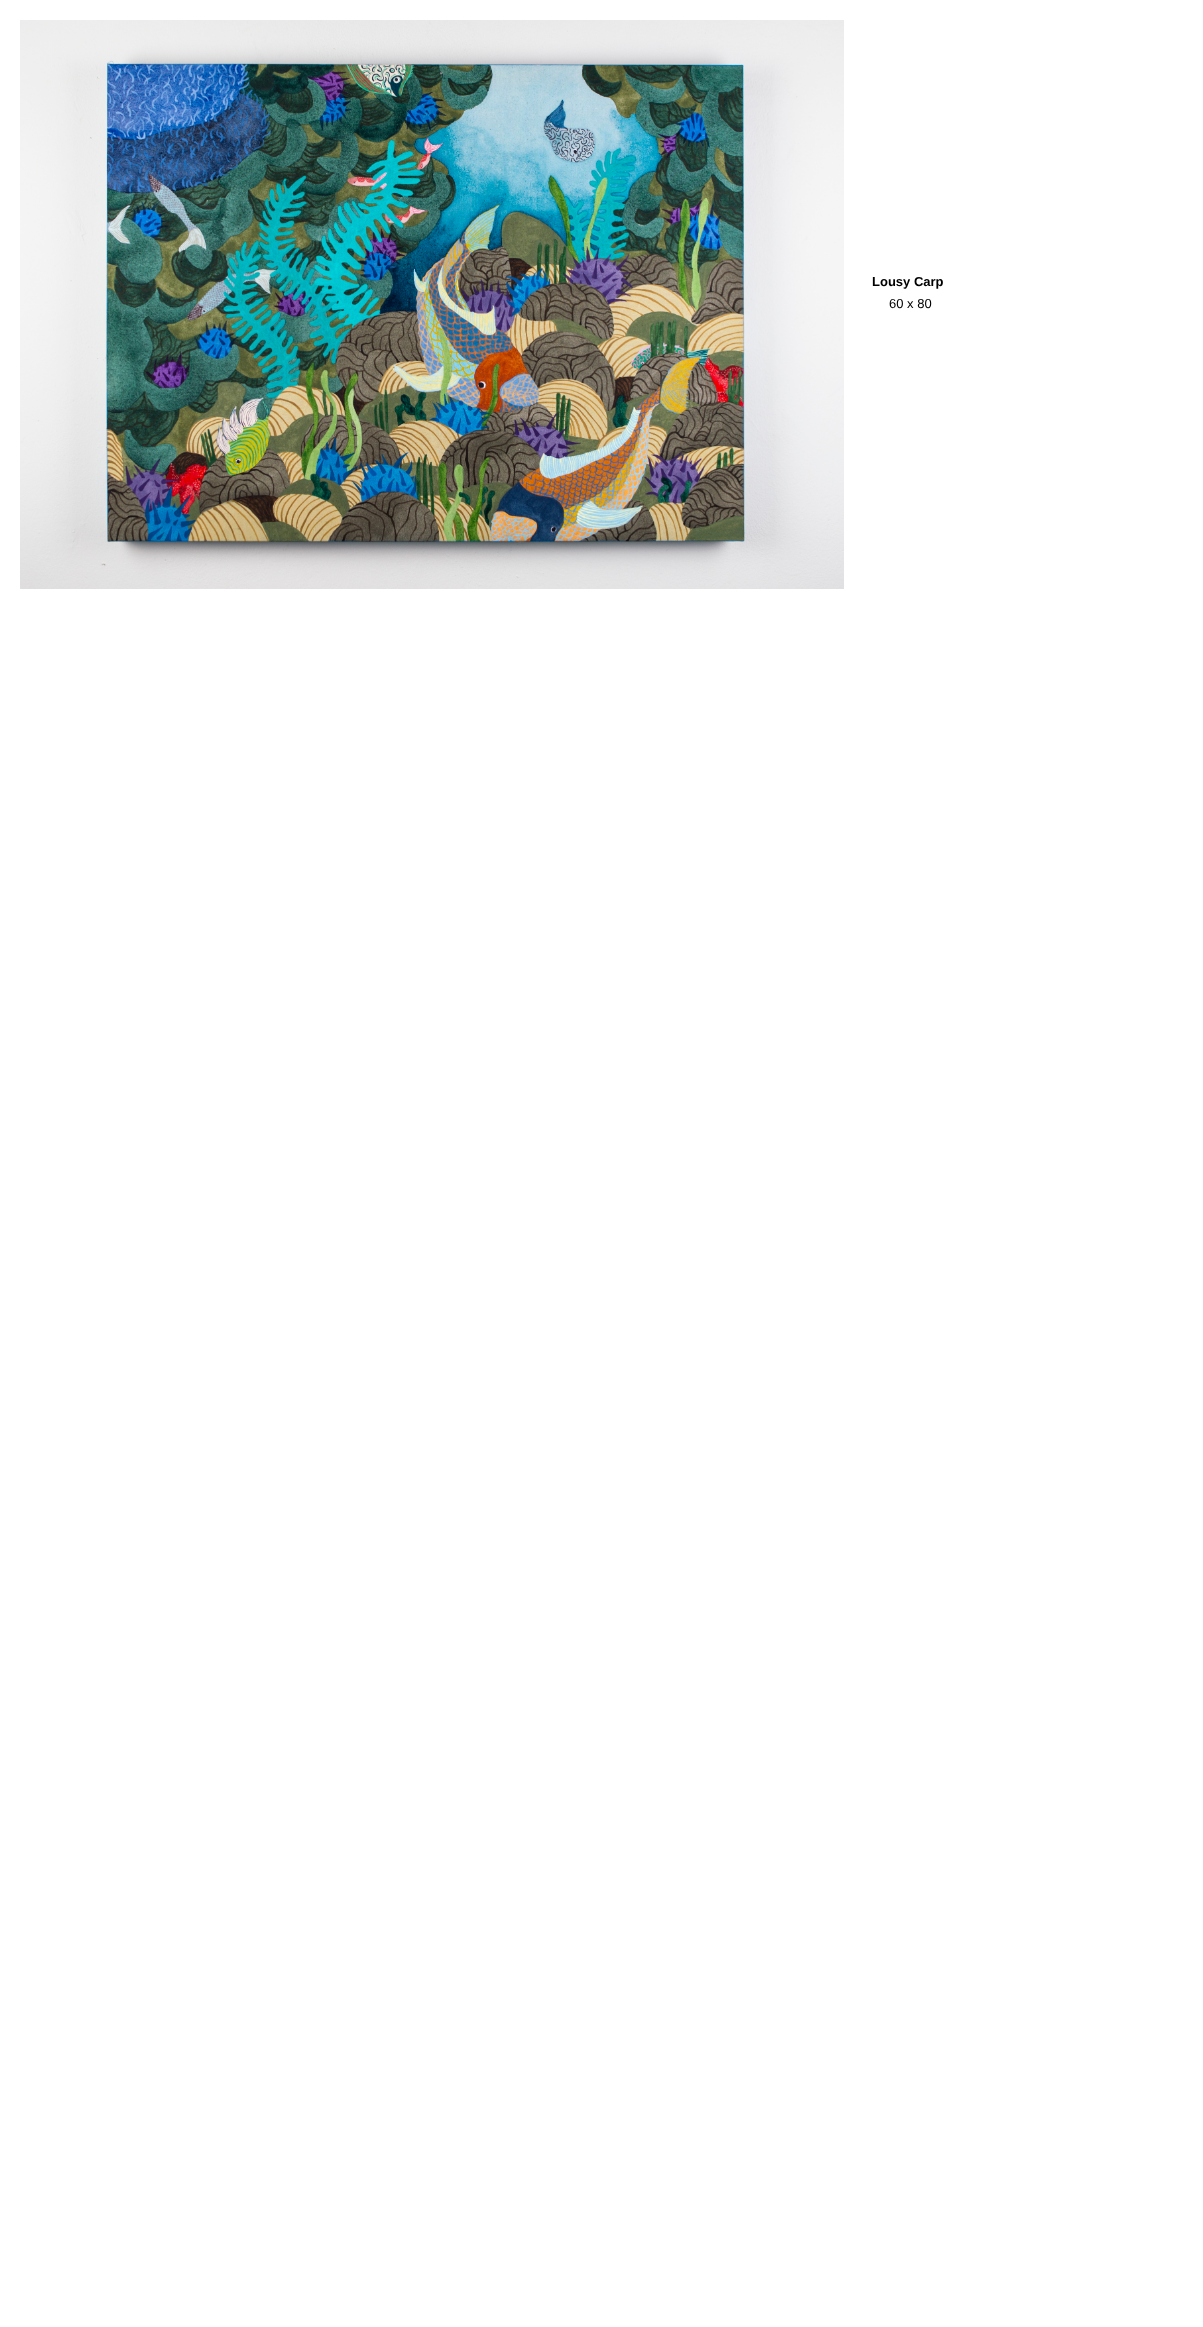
<svg xmlns="http://www.w3.org/2000/svg" width="1203" height="2327">
<rect width="100%" height="100%" fill="#fff"/>
<image x="20" y="20" width="824" height="569" href="media/1.png"/>
<text x="872" y="286" style="font-family:Liberation Sans;font-size:13px;font-weight:bold;fill:#000">Lousy Carp</text>
<text x="889" y="308" style="font-family:Liberation Sans;font-size:13px;fill:#000">60 x 80</text>
</svg>
